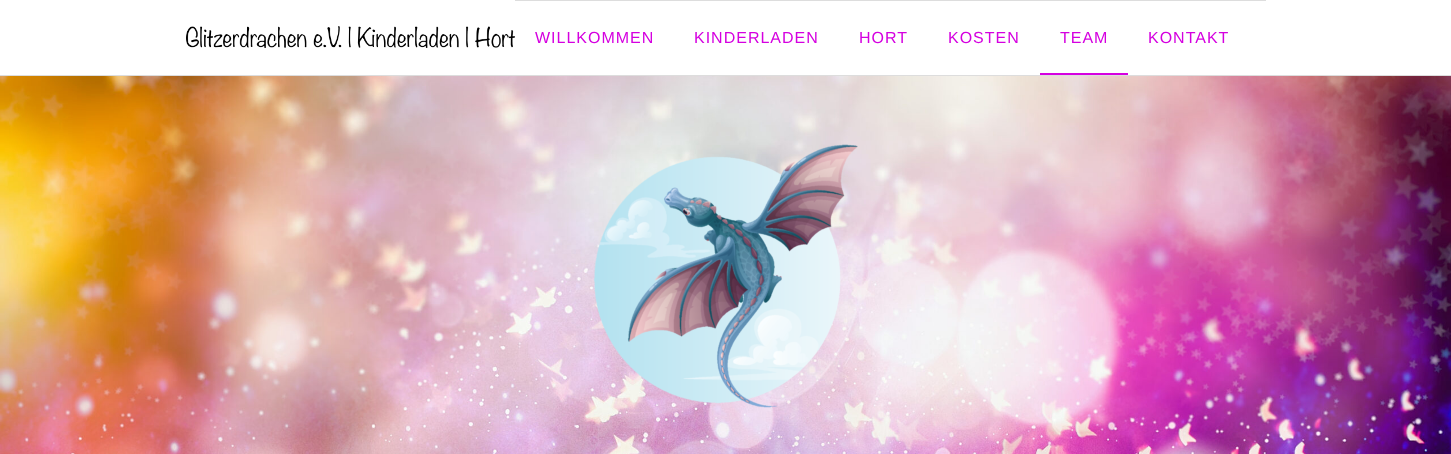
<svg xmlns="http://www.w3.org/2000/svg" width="1451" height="454">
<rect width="100%" height="100%" fill="#fff"/>
<rect y="75" width="1451" height="1" fill="#ddd"/>
<image x="186" y="26" width="329" height="22" href="media/1.png"/>
<rect x="515" width="751" height="1" fill="#ddd"/>
<text x="535" y="43" style="font-family:Liberation Sans;font-size:16px;letter-spacing:1px;fill:#d500e0">WILLKOMMEN</text>
<text x="694" y="43" style="font-family:Liberation Sans;font-size:16px;letter-spacing:1px;fill:#d500e0">KINDERLADEN</text>
<text x="859" y="43" style="font-family:Liberation Sans;font-size:16px;letter-spacing:1px;fill:#d500e0">HORT</text>
<text x="948" y="43" style="font-family:Liberation Sans;font-size:16px;letter-spacing:1px;fill:#d500e0">KOSTEN</text>
<rect x="1040" y="73" width="88" height="2" fill="#d500e0"/>
<text x="1060" y="43" style="font-family:Liberation Sans;font-size:16px;letter-spacing:1px;fill:#d500e0">TEAM</text>
<text x="1148" y="43" style="font-family:Liberation Sans;font-size:16px;letter-spacing:1px;fill:#d500e0">KONTAKT</text>
<image x="0" y="76" width="1451" height="378" href="media/2.png"/>
<image x="594" y="144" width="264" height="264" href="media/3.png"/>
</svg>
